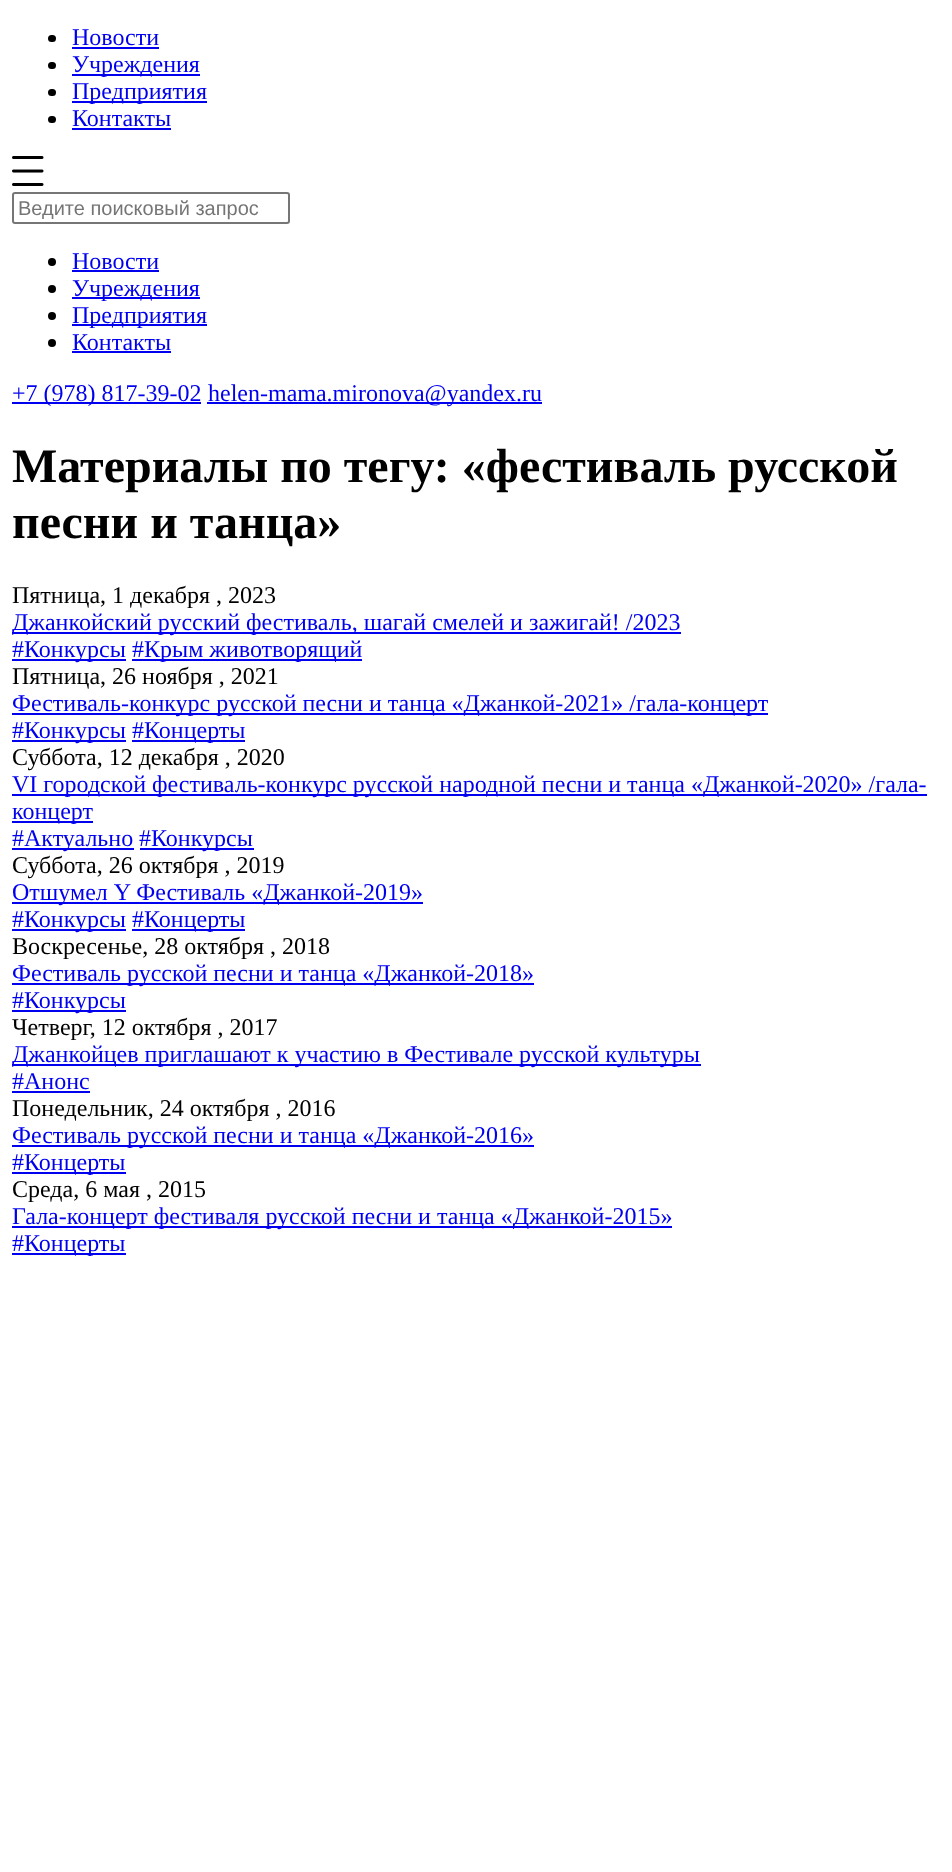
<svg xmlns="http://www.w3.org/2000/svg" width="952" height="1872">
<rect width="100%" height="100%" fill="#fff"/>
<rect x="48" y="35" width="8" height="7" rx="3.5" fill="#000"/>
<text x="72" y="45" style="font-family:Liberation Serif;font-size:24px;fill:#00e">Новости</text>
<rect x="72" y="47" width="87" height="2" fill="#00e"/>
<rect x="48" y="62" width="8" height="7" rx="3.5" fill="#000"/>
<rect x="72" y="74" width="128" height="2" fill="#00e"/>
<text x="72" y="72" style="font-family:Liberation Serif;font-size:24px;fill:#00e">Учреждения</text>
<rect x="48" y="89" width="8" height="7" rx="3.5" fill="#000"/>
<rect x="72" y="101" width="135" height="2" fill="#00e"/>
<text x="72" y="99" style="font-family:Liberation Serif;font-size:24px;fill:#00e">Предприятия</text>
<rect x="48" y="116" width="8" height="7" rx="3.5" fill="#000"/>
<text x="72" y="126" style="font-family:Liberation Serif;font-size:24px;fill:#00e">Контакты</text>
<rect x="72" y="128" width="99" height="2" fill="#00e"/>
<image x="12" y="156" width="32" height="30" href="media/1.png"/>
<rect x="13" y="193" width="276" height="30" rx="2" fill="none" stroke="#767676" stroke-width="2"/>
<text x="18" y="215" style="font-family:Liberation Sans;font-size:20px;fill:#757575">Ведите поисковый запрос</text>
<circle cx="52" cy="262" r="4" fill="#000"/>
<text x="72" y="269" style="font-family:Liberation Serif;font-size:24px;fill:#00e">Новости</text>
<rect x="72" y="270" width="87" height="2" fill="#00e"/>
<circle cx="52" cy="289" r="4" fill="#000"/>
<rect x="72" y="297" width="128" height="2" fill="#00e"/>
<text x="72" y="296" style="font-family:Liberation Serif;font-size:24px;fill:#00e">Учреждения</text>
<circle cx="52" cy="316" r="4" fill="#000"/>
<rect x="72" y="324" width="135" height="2" fill="#00e"/>
<text x="72" y="323" style="font-family:Liberation Serif;font-size:24px;fill:#00e">Предприятия</text>
<circle cx="52" cy="343" r="4" fill="#000"/>
<text x="72" y="350" style="font-family:Liberation Serif;font-size:24px;fill:#00e">Контакты</text>
<rect x="72" y="351" width="99" height="2" fill="#00e"/>
<rect x="12" y="402" width="189" height="2" fill="#00e"/>
<text x="12" y="401" style="font-family:Liberation Serif;font-size:24px;fill:#00e">+7 (978) 817-39-02</text>
<rect x="207" y="402" width="335" height="2" fill="#00e"/>
<text x="208" y="401" style="font-family:Liberation Serif;font-size:24px;fill:#00e">helen-mama.mironova@yandex.ru</text>
<text x="12" y="482" style="font-family:Liberation Serif;font-size:48px;font-weight:bold;fill:#000">Материалы по тегу: «фестиваль русской</text>
<text x="12" y="538" style="font-family:Liberation Serif;font-size:48px;font-weight:bold;fill:#000">песни и танца»</text>
<text x="12" y="603" style="font-family:Liberation Serif;font-size:24px;fill:#000">Пятница, 1 декабря , 2023</text>
<rect x="12" y="632" width="669" height="2" fill="#00e"/>
<text x="12" y="630" style="font-family:Liberation Serif;font-size:24px;fill:#00e">Джанкойский русский фестиваль, шагай смелей и зажигай! /2023</text>
<rect x="12" y="659" width="114" height="2" fill="#00e"/>
<text x="12" y="657" style="font-family:Liberation Serif;font-size:24px;fill:#00e">#Конкурсы</text>
<rect x="132" y="659" width="230" height="2" fill="#00e"/>
<text x="132" y="657" style="font-family:Liberation Serif;font-size:24px;fill:#00e">#Крым животворящий</text>
<text x="12" y="684" style="font-family:Liberation Serif;font-size:24px;fill:#000">Пятница, 26 ноября , 2021</text>
<rect x="12" y="713" width="756" height="2" fill="#00e"/>
<text x="12" y="711" style="font-family:Liberation Serif;font-size:24px;fill:#00e">Фестиваль-конкурс русской песни и танца «Джанкой-2021» /гала-концерт</text>
<rect x="12" y="740" width="114" height="2" fill="#00e"/>
<text x="12" y="738" style="font-family:Liberation Serif;font-size:24px;fill:#00e">#Конкурсы</text>
<rect x="132" y="740" width="113" height="2" fill="#00e"/>
<text x="132" y="738" style="font-family:Liberation Serif;font-size:24px;fill:#00e">#Концерты</text>
<text x="12" y="765" style="font-family:Liberation Serif;font-size:24px;fill:#000">Суббота, 12 декабря , 2020</text>
<rect x="12" y="794" width="915" height="2" fill="#00e"/>
<text x="12" y="792" style="font-family:Liberation Serif;font-size:24px;fill:#00e">VI городской фестиваль-конкурс русской народной песни и танца «Джанкой-2020» /гала-</text>
<rect x="12" y="821" width="81" height="2" fill="#00e"/>
<text x="12" y="819" style="font-family:Liberation Serif;font-size:24px;fill:#00e">концерт</text>
<rect x="12" y="848" width="122" height="2" fill="#00e"/>
<text x="12" y="846" style="font-family:Liberation Serif;font-size:24px;fill:#00e">#Актуально</text>
<rect x="140" y="848" width="114" height="2" fill="#00e"/>
<text x="139" y="846" style="font-family:Liberation Serif;font-size:24px;fill:#00e">#Конкурсы</text>
<text x="12" y="873" style="font-family:Liberation Serif;font-size:24px;fill:#000">Суббота, 26 октября , 2019</text>
<rect x="12" y="902" width="411" height="2" fill="#00e"/>
<text x="12" y="900" style="font-family:Liberation Serif;font-size:24px;fill:#00e">Отшумел Y Фестиваль «Джанкой-2019»</text>
<rect x="12" y="929" width="114" height="2" fill="#00e"/>
<text x="12" y="927" style="font-family:Liberation Serif;font-size:24px;fill:#00e">#Конкурсы</text>
<rect x="132" y="929" width="113" height="2" fill="#00e"/>
<text x="132" y="927" style="font-family:Liberation Serif;font-size:24px;fill:#00e">#Концерты</text>
<text x="12" y="954" style="font-family:Liberation Serif;font-size:24px;fill:#000">Воскресенье, 28 октября , 2018</text>
<rect x="12" y="983" width="522" height="2" fill="#00e"/>
<text x="12" y="981" style="font-family:Liberation Serif;font-size:24px;fill:#00e">Фестиваль русской песни и танца «Джанкой-2018»</text>
<rect x="12" y="1010" width="114" height="2" fill="#00e"/>
<text x="12" y="1008" style="font-family:Liberation Serif;font-size:24px;fill:#00e">#Конкурсы</text>
<text x="12" y="1035" style="font-family:Liberation Serif;font-size:24px;fill:#000">Четверг, 12 октября , 2017</text>
<rect x="12" y="1064" width="689" height="2" fill="#00e"/>
<text x="12" y="1062" style="font-family:Liberation Serif;font-size:24px;fill:#00e">Джанкойцев приглашают к участию в Фестивале русской культуры</text>
<text x="12" y="1089" style="font-family:Liberation Serif;font-size:24px;fill:#00e">#Анонс</text>
<rect x="12" y="1091" width="78" height="2" fill="#00e"/>
<text x="12" y="1116" style="font-family:Liberation Serif;font-size:24px;fill:#000">Понедельник, 24 октября , 2016</text>
<rect x="12" y="1145" width="522" height="2" fill="#00e"/>
<text x="12" y="1143" style="font-family:Liberation Serif;font-size:24px;fill:#00e">Фестиваль русской песни и танца «Джанкой-2016»</text>
<rect x="12" y="1172" width="114" height="2" fill="#00e"/>
<text x="12" y="1170" style="font-family:Liberation Serif;font-size:24px;fill:#00e">#Концерты</text>
<text x="12" y="1197" style="font-family:Liberation Serif;font-size:24px;fill:#000">Среда, 6 мая , 2015</text>
<rect x="12" y="1226" width="660" height="2" fill="#00e"/>
<text x="12" y="1224" style="font-family:Liberation Serif;font-size:24px;fill:#00e">Гала-концерт фестиваля русской песни и танца «Джанкой-2015»</text>
<rect x="12" y="1253" width="114" height="2" fill="#00e"/>
<text x="12" y="1251" style="font-family:Liberation Serif;font-size:24px;fill:#00e">#Концерты</text>
</svg>
